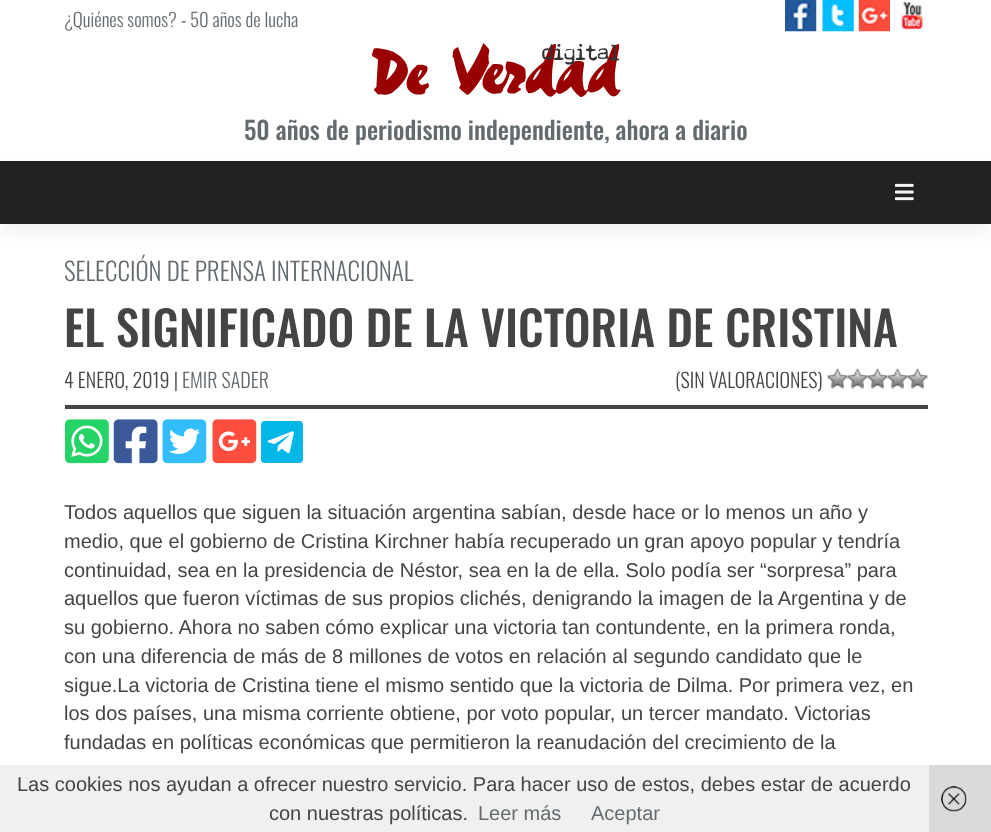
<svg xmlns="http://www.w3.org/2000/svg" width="991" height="832">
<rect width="100%" height="100%" fill="#fff"/>
<text x="64" y="27" style="font-family:Oswald;font-size:18.75px;font-weight:300;fill:#636b6f">¿Quiénes somos?</text>
<text x="181" y="27" style="font-family:Oswald;font-size:18.75px;font-weight:300;fill:#444">-</text>
<text x="190" y="27" style="font-family:Oswald;font-size:18.75px;font-weight:300;fill:#636b6f">50 años de lucha</text>
<image x="785" y="0" width="32" height="32" href="media/1.png"/>
<image x="822" y="0" width="32" height="32" href="media/2.png"/>
<image x="858" y="0" width="32" height="32" href="media/3.png"/>
<image x="896" y="0" width="31" height="30" href="media/4.png"/>
<image x="372" y="43" width="249" height="54" href="media/5.png"/>
<rect y="170" width="991" height="63" fill="#0000000d" filter="blur(8.5px)"/>
<text x="244" y="140" style="font-family:Oswald;font-size:25px;font-weight:500;fill:#636b6f">50 años de periodismo independiente, ahora a diario</text>
<rect y="161" width="991" height="62" fill="#222"/>
<rect y="223" width="991" height="1" fill="#1f1f1f"/>
<image x="895" y="183" width="19" height="18" href="media/6.png"/>
<rect x="65" y="405" width="863" height="4" fill="#444"/>
<text x="64" y="281" style="font-family:Oswald;font-size:25px;font-weight:300;fill:#636b6f">SELECCIÓN DE PRENSA INTERNACIONAL</text>
<text x="64" y="347" style="font-family:Oswald;font-size:47.5px;font-weight:500;fill:#444">EL SIGNIFICADO DE LA VICTORIA DE CRISTINA</text>
<text x="64" y="388" style="font-family:Oswald;font-size:20px;font-weight:300;fill:#444">4 ENERO, 2019 |</text>
<text x="182" y="388" style="font-family:Oswald;font-size:20px;font-weight:300;fill:#636b6f">EMIR SADER</text>
<text x="675" y="388" style="font-family:Oswald;font-size:20px;font-weight:300;fill:#444">(SIN VALORACIONES)</text>
<image x="827" y="368" width="21" height="21" href="media/7.png"/>
<image x="847" y="368" width="21" height="21" href="media/8.png"/>
<image x="867" y="368" width="21" height="21" href="media/8.png"/>
<image x="887" y="368" width="21" height="21" href="media/8.png"/>
<image x="907" y="368" width="21" height="21" href="media/8.png"/>
<image x="65" y="419" width="44" height="45" href="media/9.png"/>
<image x="113" y="419" width="45" height="45" href="media/10.png"/>
<image x="162" y="419" width="45" height="45" href="media/11.png"/>
<image x="212" y="419" width="45" height="45" href="media/12.png"/>
<rect x="261" y="421" width="42" height="42" rx="4" fill="#00b7e8"/>
<image x="267" y="431" width="27" height="23" href="media/13.png"/>
<text x="64" y="519" style="font-family:Liberation Sans;font-size:20px;fill:#444">Todos aquellos que siguen la situación argentina sabían, desde hace or lo menos un año y</text>
<text x="64" y="548" style="font-family:Liberation Sans;font-size:20px;fill:#444">medio, que el gobierno de Cristina Kirchner había recuperado un gran apoyo popular y tendría</text>
<text x="64" y="577" style="font-family:Liberation Sans;font-size:20px;fill:#444">continuidad, sea en la presidencia de Néstor, sea en la de ella. Solo podía ser “sorpresa” para</text>
<text x="64" y="605" style="font-family:Liberation Sans;font-size:20px;fill:#444">aquellos que fueron víctimas de sus propios clichés, denigrando la imagen de la Argentina y de</text>
<text x="64" y="634" style="font-family:Liberation Sans;font-size:20px;fill:#444">su gobierno. Ahora no saben cómo explicar una victoria tan contundente, en la primera ronda,</text>
<text x="64" y="663" style="font-family:Liberation Sans;font-size:20px;fill:#444">con una diferencia de más de 8 millones de votos en relación al segundo candidato que le</text>
<text x="64" y="692" style="font-family:Liberation Sans;font-size:20px;fill:#444">sigue.La victoria de Cristina tiene el mismo sentido que la victoria de Dilma. Por primera vez, en</text>
<text x="64" y="720" style="font-family:Liberation Sans;font-size:20px;fill:#444">los dos países, una misma corriente obtiene, por voto popular, un tercer mandato. Victorias</text>
<text x="64" y="749" style="font-family:Liberation Sans;font-size:20px;fill:#444">fundadas en políticas económicas que permitieron la reanudación del crecimiento de la</text>
<rect y="765" width="929" height="67" fill="#eeeeeee6"/>
<text x="17" y="791" style="font-family:Liberation Sans;font-size:20px;fill:#444">Las cookies nos ayudan a ofrecer nuestro servicio. Para hacer uso de estos, debes estar de acuerdo</text>
<text x="269" y="820" style="font-family:Liberation Sans;font-size:20px;fill:#444">con nuestras políticas.</text>
<text x="478" y="820" style="font-family:Liberation Sans;font-size:20px;fill:#636b6f">Leer más</text>
<text x="591" y="820" style="font-family:Liberation Sans;font-size:20px;fill:#636b6f">Aceptar</text>
<rect x="929" y="765" width="62" height="67" fill="#dadada"/>
<image x="941" y="786" width="26" height="26" href="media/14.png"/>
</svg>
